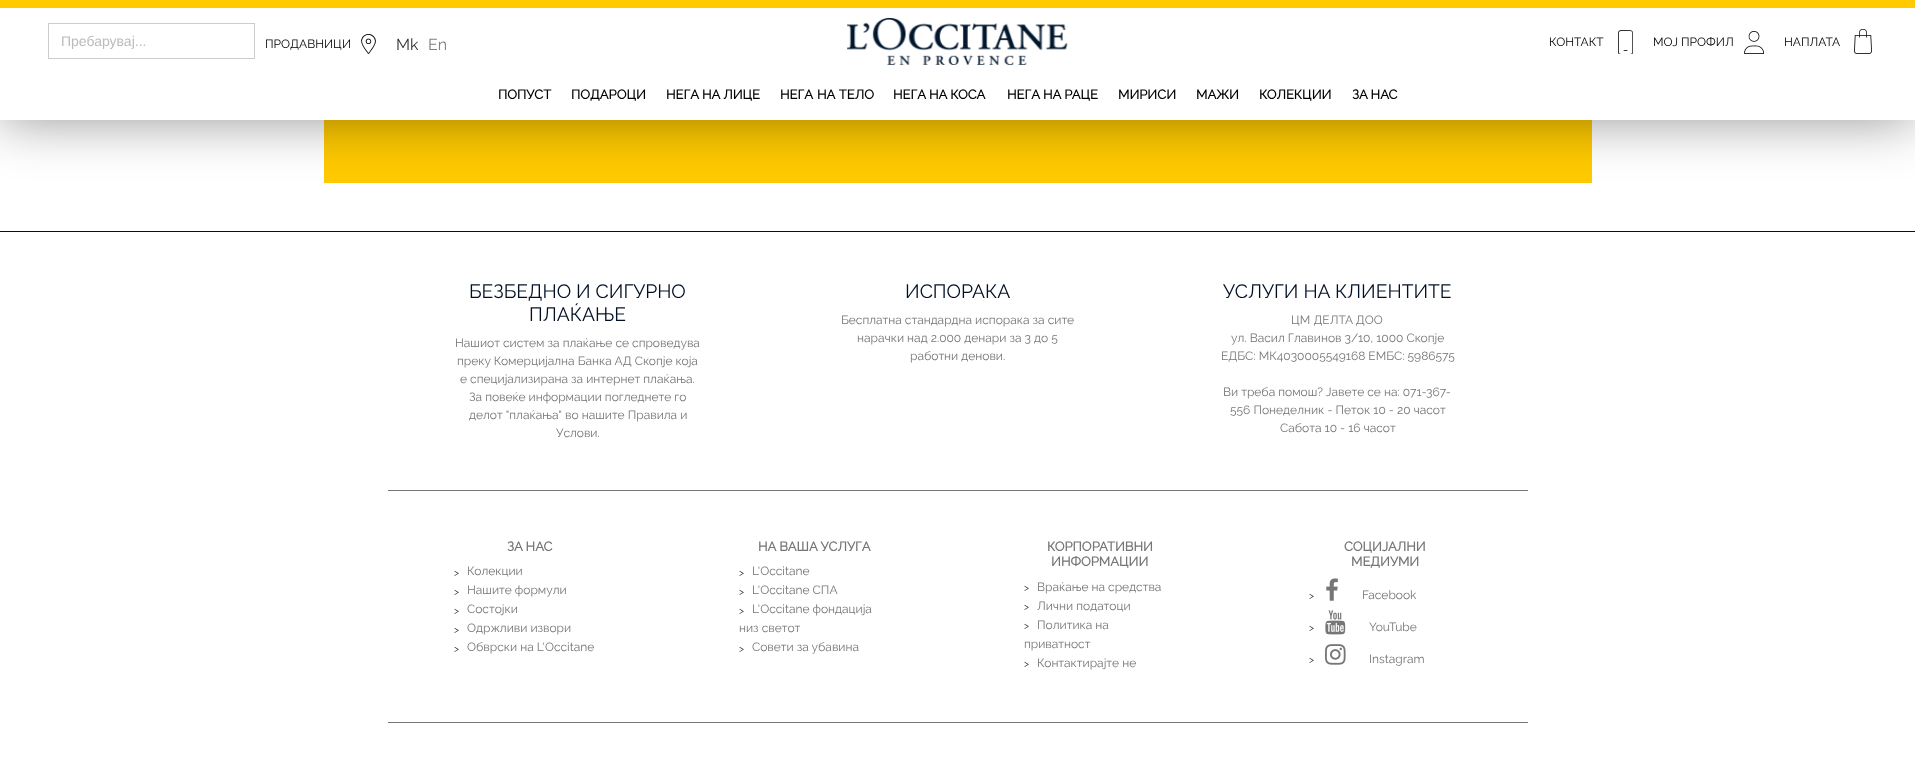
<svg xmlns="http://www.w3.org/2000/svg" width="1915" height="775">
<rect width="100%" height="100%" fill="#fff"/>
<rect x="324" y="120" width="1268" height="63" fill="#ffca00"/>
<rect width="1915" height="120" fill="#0000006b" filter="blur(27px)"/>
<rect y="8" width="1915" height="112" fill="#fff"/>
<rect width="1915" height="8" fill="#ffcb00"/>
<rect x="48.5" y="23.5" width="206" height="35" fill="none" stroke="#ccc"/>
<text x="61" y="46" style="font-family:Liberation Sans;font-size:14px;fill:#bbb">Пребарувај...</text>
<text x="265" y="48" style="font-family:Raleway;font-size:12px;font-weight:100;fill:#000">ПРОДАВНИЦИ</text>
<image x="361" y="34" width="15" height="20" href="media/1.png"/>
<text x="396" y="50" style="font-family:Raleway;font-size:16px;font-weight:100;fill:#333">Mk</text>
<text x="428" y="50" style="font-family:Raleway;font-size:16px;font-weight:100;fill:#808080">En</text>
<image x="847" y="18" width="221" height="47" href="media/2.png"/>
<text x="1549" y="46" style="font-family:Raleway;font-size:12px;font-weight:100;fill:#000">КОНТАКТ</text>
<image x="1618" y="30" width="15" height="24" href="media/3.png"/>
<text x="1653" y="46" style="font-family:Raleway;font-size:12px;font-weight:100;fill:#000">МОЈ ПРОФИЛ</text>
<image x="1744" y="31" width="20" height="23" href="media/4.png"/>
<text x="1784" y="46" style="font-family:Raleway;font-size:12px;font-weight:100;fill:#000">НАПЛАТА</text>
<image x="1854" y="29" width="18" height="25" href="media/5.png"/>
<text x="498" y="99" style="font-family:Raleway;font-size:13px;font-weight:bold;fill:#000">ПОПУСТ</text>
<text x="571" y="99" style="font-family:Raleway;font-size:13px;font-weight:bold;fill:#000">ПОДАРОЦИ</text>
<text x="666" y="99" style="font-family:Raleway;font-size:13px;font-weight:bold;fill:#000">НЕГА НА ЛИЦЕ</text>
<text x="780" y="99" word-spacing="1" style="font-family:Raleway;font-size:13px;font-weight:bold;fill:#000">НЕГА НА ТЕЛО</text>
<text x="893" y="99" style="font-family:Raleway;font-size:13px;font-weight:bold;fill:#000">НЕГА НА КОСА</text>
<text x="1007" y="99" style="font-family:Raleway;font-size:13px;font-weight:bold;fill:#000">НЕГА НА РАЦЕ</text>
<text x="1118" y="99" style="font-family:Raleway;font-size:13px;font-weight:bold;fill:#000">МИРИСИ</text>
<text x="1196" y="99" style="font-family:Raleway;font-size:13px;font-weight:bold;fill:#000">МАЖИ</text>
<text x="1259" y="99" style="font-family:Raleway;font-size:13px;font-weight:bold;fill:#000">КОЛЕКЦИИ</text>
<text x="1352" y="99" style="font-family:Raleway;font-size:13px;font-weight:bold;fill:#000">ЗА НАС</text>
<rect y="231" width="1915" height="1" fill="#000f23"/>
<text x="469" y="298" style="font-family:Raleway;font-size:19.25px;font-weight:100;fill:#000f23">БЕЗБЕДНО И СИГУРНО</text>
<text x="529" y="321" style="font-family:Raleway;font-size:19.25px;font-weight:100;fill:#000f23">ПЛАЌАЊЕ</text>
<text x="455" y="347" style="font-family:Raleway;font-size:12px;font-weight:100;fill:#767676">Нашиот систем за плаќање се спроведува</text>
<text x="457" y="365" style="font-family:Raleway;font-size:12px;font-weight:100;fill:#767676">преку Комерцијална Банка АД Скопје која</text>
<text x="460" y="383" style="font-family:Raleway;font-size:12px;font-weight:100;fill:#767676">е специјализирана за интернет плаќања.</text>
<text x="469" y="401" style="font-family:Raleway;font-size:12px;font-weight:100;fill:#767676">За повеќе информации погледнете го</text>
<text x="469" y="419" style="font-family:Raleway;font-size:12px;font-weight:100;fill:#767676">делот "плаќања" во нашите Правила и</text>
<text x="556" y="437" style="font-family:Raleway;font-size:12px;font-weight:100;fill:#767676">Услови.</text>
<text x="905" y="298" style="font-family:Raleway;font-size:19.25px;font-weight:100;fill:#000f23">ИСПОРАКА</text>
<text x="841" y="324" style="font-family:Raleway;font-size:12px;font-weight:100;fill:#767676">Бесплатна стандардна испорака за сите</text>
<text x="857" y="342" style="font-family:Raleway;font-size:12px;font-weight:100;fill:#767676">нарачки над 2.000 денари за 3 до 5</text>
<text x="910" y="360" style="font-family:Raleway;font-size:12px;font-weight:100;fill:#767676">работни денови.</text>
<text x="1223" y="298" style="font-family:Raleway;font-size:19.25px;font-weight:100;fill:#000f23">УСЛУГИ НА КЛИЕНТИТЕ</text>
<text x="1291" y="324" style="font-family:Raleway;font-size:12px;font-weight:100;fill:#767676">ЦМ ДЕЛТА ДОО</text>
<text x="1231" y="342" style="font-family:Raleway;font-size:12px;font-weight:100;fill:#767676">ул. Васил Главинов 3/10, 1000 Скопје</text>
<text x="1221" y="360" style="font-family:Raleway;font-size:12px;font-weight:100;fill:#767676">ЕДБС: МК4030005549168 ЕМБС: 5986575</text>
<text x="1223" y="396" style="font-family:Raleway;font-size:12px;font-weight:100;fill:#767676">Ви треба помош? Јавете се на: 071-367-</text>
<text x="1230" y="414" style="font-family:Raleway;font-size:12px;font-weight:100;fill:#767676">556 Понеделник - Петок 10 - 20 часот</text>
<text x="1280" y="432" style="font-family:Raleway;font-size:12px;font-weight:100;fill:#767676">Сабота 10 - 16 часот</text>
<rect x="388" y="490" width="1140" height="1" fill="#767676"/>
<rect x="388" y="722" width="1140" height="1" fill="#767676"/>
<text x="507" y="551" style="font-family:Raleway;font-size:13px;font-weight:bold;fill:#767676">ЗА НАС</text>
<text x="454" y="576" style="font-family:Raleway;font-size:10px;font-weight:100;fill:#212529">&gt;</text>
<text x="467" y="575" style="font-family:Raleway;font-size:12px;font-weight:100;fill:#767676">Колекции</text>
<text x="454" y="595" style="font-family:Raleway;font-size:10px;font-weight:100;fill:#212529">&gt;</text>
<text x="467" y="594" style="font-family:Raleway;font-size:12px;font-weight:100;fill:#767676">Нашите формули</text>
<text x="454" y="614" style="font-family:Raleway;font-size:10px;font-weight:100;fill:#212529">&gt;</text>
<text x="467" y="613" style="font-family:Raleway;font-size:12px;font-weight:100;fill:#767676">Состојки</text>
<text x="454" y="633" style="font-family:Raleway;font-size:10px;font-weight:100;fill:#212529">&gt;</text>
<text x="467" y="632" style="font-family:Raleway;font-size:12px;font-weight:100;fill:#767676">Одржливи извори</text>
<text x="454" y="652" style="font-family:Raleway;font-size:10px;font-weight:100;fill:#212529">&gt;</text>
<text x="467" y="651" style="font-family:Raleway;font-size:12px;font-weight:100;fill:#767676">Обврски на L'Occitane</text>
<text x="758" y="551" style="font-family:Raleway;font-size:13px;font-weight:bold;fill:#767676">НА ВАША УСЛУГА</text>
<text x="739" y="576" style="font-family:Raleway;font-size:10px;font-weight:100;fill:#212529">&gt;</text>
<text x="752" y="575" style="font-family:Raleway;font-size:12px;font-weight:100;fill:#767676">L'Occitane</text>
<text x="739" y="595" style="font-family:Raleway;font-size:10px;font-weight:100;fill:#212529">&gt;</text>
<text x="752" y="594" style="font-family:Raleway;font-size:12px;font-weight:100;fill:#767676">L'Occitane СПА</text>
<text x="739" y="614" style="font-family:Raleway;font-size:10px;font-weight:100;fill:#212529">&gt;</text>
<text x="752" y="613" style="font-family:Raleway;font-size:12px;font-weight:100;fill:#767676">L'Occitane фондација</text>
<text x="739" y="632" style="font-family:Raleway;font-size:12px;font-weight:100;fill:#767676">низ светот</text>
<text x="739" y="652" style="font-family:Raleway;font-size:10px;font-weight:100;fill:#212529">&gt;</text>
<text x="752" y="651" style="font-family:Raleway;font-size:12px;font-weight:100;fill:#767676">Совети за убавина</text>
<text x="1047" y="551" style="font-family:Raleway;font-size:13px;font-weight:bold;fill:#767676">КОРПОРАТИВНИ</text>
<text x="1051" y="566" style="font-family:Raleway;font-size:13px;font-weight:bold;fill:#767676">ИНФОРМАЦИИ</text>
<text x="1024" y="591" style="font-family:Raleway;font-size:10px;font-weight:100;fill:#212529">&gt;</text>
<text x="1037" y="591" style="font-family:Raleway;font-size:12px;font-weight:100;fill:#767676">Враќање на средства</text>
<text x="1024" y="610" style="font-family:Raleway;font-size:10px;font-weight:100;fill:#212529">&gt;</text>
<text x="1037" y="610" style="font-family:Raleway;font-size:12px;font-weight:100;fill:#767676">Лични податоци</text>
<text x="1024" y="629" style="font-family:Raleway;font-size:10px;font-weight:100;fill:#212529">&gt;</text>
<text x="1037" y="629" style="font-family:Raleway;font-size:12px;font-weight:100;fill:#767676">Политика на</text>
<text x="1024" y="648" style="font-family:Raleway;font-size:12px;font-weight:100;fill:#767676">приватност</text>
<text x="1024" y="667" style="font-family:Raleway;font-size:10px;font-weight:100;fill:#212529">&gt;</text>
<text x="1037" y="667" style="font-family:Raleway;font-size:12px;font-weight:100;fill:#767676">Контактирајте не</text>
<text x="1344" y="551" style="font-family:Raleway;font-size:13px;font-weight:bold;fill:#767676">СОЦИЈАЛНИ</text>
<text x="1351" y="566" style="font-family:Raleway;font-size:13px;font-weight:bold;fill:#767676">МЕДИУМИ</text>
<text x="1309" y="599" style="font-family:Raleway;font-size:10px;font-weight:100;fill:#212529">&gt;</text>
<image x="1326" y="578" width="12" height="23" href="media/6.png"/>
<text x="1362" y="599" style="font-family:Raleway;font-size:12px;font-weight:100;fill:#767676">Facebook</text>
<text x="1309" y="631" style="font-family:Raleway;font-size:10px;font-weight:100;fill:#212529">&gt;</text>
<image x="1325" y="610" width="21" height="25" href="media/7.png"/>
<text x="1369" y="631" style="font-family:Raleway;font-size:12px;font-weight:100;fill:#767676">YouTube</text>
<text x="1309" y="663" style="font-family:Raleway;font-size:10px;font-weight:100;fill:#212529">&gt;</text>
<image x="1325" y="644" width="21" height="21" href="media/8.png"/>
<text x="1369" y="663" style="font-family:Raleway;font-size:12px;font-weight:100;fill:#767676">Instagram</text>
</svg>
